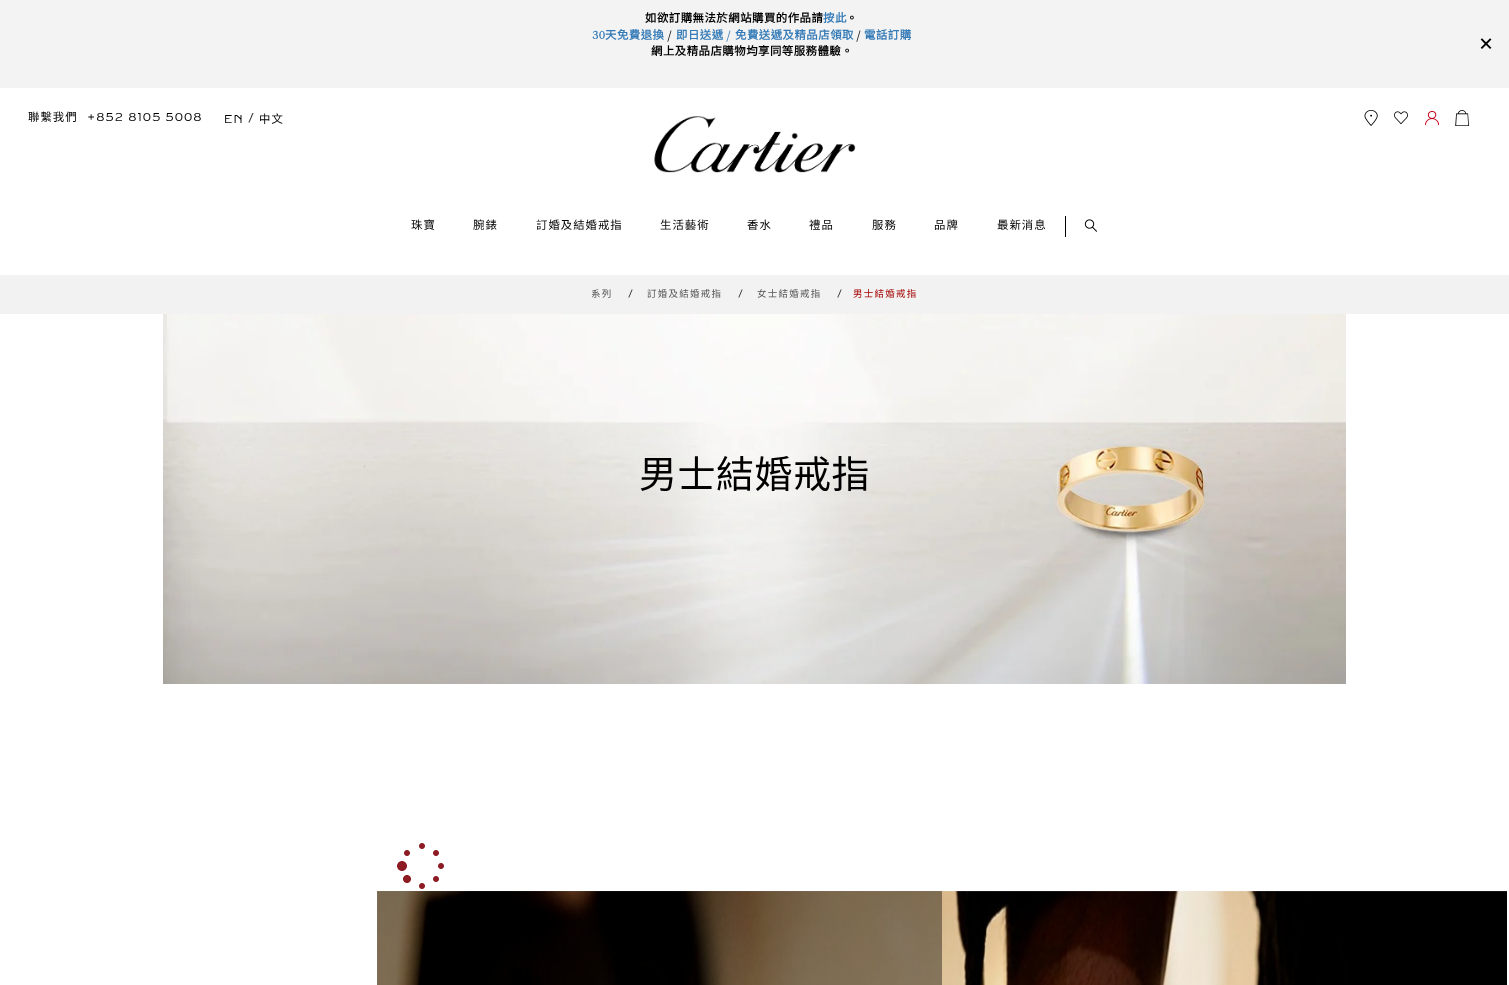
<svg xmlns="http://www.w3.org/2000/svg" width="1509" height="985">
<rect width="100%" height="100%" fill="#fff"/>
<rect width="1509" height="88" fill="#f3f3f3"/>
<text x="645" y="22" style="font-family:Noto Sans CJK HK;font-size:11.4px;font-weight:bold;letter-spacing:0.5px;fill:#000">如欲訂購無法於網站購買的作品請</text>
<text x="823" y="22" style="font-family:Noto Sans CJK HK;font-size:11.4px;font-weight:bold;letter-spacing:0.5px;fill:#337ab7">按此</text>
<text x="846" y="22" style="font-family:Noto Sans CJK HK;font-size:11.4px;font-weight:bold;letter-spacing:0.5px;fill:#000">。</text>
<text x="592" y="39" style="font-family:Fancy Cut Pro;font-size:11.4px;font-weight:bold;letter-spacing:0.5px;fill:#337ab7">30</text>
<text x="605" y="39" style="font-family:Noto Sans CJK HK;font-size:11.4px;font-weight:bold;letter-spacing:0.5px;fill:#337ab7">天免費退換</text>
<text x="667" y="39" style="font-family:Fancy Cut Pro;font-size:11.4px;font-weight:bold;letter-spacing:0.5px;fill:#000">/</text>
<text x="676" y="39" style="font-family:Noto Sans CJK HK;font-size:11.4px;font-weight:bold;letter-spacing:0.5px;fill:#337ab7">即日送遞</text>
<text x="726" y="39" style="font-family:Fancy Cut Pro;font-size:11.4px;font-weight:bold;letter-spacing:0.5px;fill:#337ab7">/</text>
<text x="735" y="39" style="font-family:Noto Sans CJK HK;font-size:11.4px;font-weight:bold;letter-spacing:0.5px;fill:#337ab7">免費送遞及精品店領取</text>
<text x="856" y="39" style="font-family:Fancy Cut Pro;font-size:11.4px;font-weight:bold;letter-spacing:0.5px;fill:#000">/</text>
<text x="864" y="39" style="font-family:Noto Sans CJK HK;font-size:11.4px;font-weight:bold;letter-spacing:0.5px;fill:#337ab7">電話訂購</text>
<text x="651" y="55" style="font-family:Noto Sans CJK HK;font-size:11.4px;font-weight:bold;letter-spacing:0.5px;fill:#000">網上及精品店購物均享同等服務體驗。</text>
<text x="1479" y="53" style="font-family:Proxima Nova;font-size:28px;font-weight:600;fill:#000">×</text>
<text x="28" y="121" style="font-family:Noto Sans CJK HK;font-size:11.4px;letter-spacing:1px;fill:#000">聯繫我們</text>
<text x="87" y="121" style="font-family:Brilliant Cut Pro;font-size:11.4px;letter-spacing:1px;fill:#000">+852 8105 5008</text>
<text x="224" y="123" style="font-family:Brilliant Cut Pro;font-size:11.4px;letter-spacing:1px;fill:#000">EN</text>
<text x="248" y="122" style="font-family:Brilliant Cut Pro;font-size:12px;fill:#333">/</text>
<text x="259" y="123" style="font-family:Noto Sans CJK HK;font-size:11.4px;letter-spacing:1px;fill:#000">中文</text>
<image x="1364" y="110" width="14" height="16" href="media/1.png"/>
<image x="1394" y="111" width="14" height="14" href="media/2.png"/>
<image x="1425" y="111" width="14" height="15" href="media/3.png"/>
<image x="1455" y="110" width="14" height="16" href="media/4.png"/>
<image x="654" y="116" width="202" height="57" href="media/5.png"/>
<text x="411" y="229" style="font-family:Noto Sans CJK HK;font-size:11.4px;letter-spacing:1px;fill:#000">珠寶</text>
<text x="473" y="229" style="font-family:Noto Sans CJK HK;font-size:11.4px;letter-spacing:1px;fill:#000">腕錶</text>
<text x="536" y="229" style="font-family:Noto Sans CJK HK;font-size:11.4px;letter-spacing:1px;fill:#000">訂婚及結婚戒指</text>
<text x="660" y="229" style="font-family:Noto Sans CJK HK;font-size:11.4px;letter-spacing:1px;fill:#000">生活藝術</text>
<text x="747" y="229" style="font-family:Noto Sans CJK HK;font-size:11.4px;letter-spacing:1px;fill:#000">香水</text>
<text x="809" y="229" style="font-family:Noto Sans CJK HK;font-size:11.4px;letter-spacing:1px;fill:#000">禮品</text>
<text x="872" y="229" style="font-family:Noto Sans CJK HK;font-size:11.4px;letter-spacing:1px;fill:#000">服務</text>
<text x="934" y="229" style="font-family:Noto Sans CJK HK;font-size:11.4px;letter-spacing:1px;fill:#000">品牌</text>
<text x="997" y="229" style="font-family:Noto Sans CJK HK;font-size:11.4px;letter-spacing:1px;fill:#000">最新消息</text>
<rect x="1065" y="216" width="1" height="21" fill="#000"/>
<image x="1084" y="219" width="13" height="13" href="media/6.png"/>
<rect y="275" width="1509" height="39" fill="#f2f2f2"/>
<text x="591" y="297" style="font-family:Noto Sans CJK HK;font-size:9.5px;letter-spacing:1.25px;fill:#555">系列</text>
<text x="628" y="297" style="font-family:Brilliant Cut Pro;font-size:10px;letter-spacing:1.25px;fill:#333">/</text>
<text x="647" y="297" style="font-family:Noto Sans CJK HK;font-size:9.5px;letter-spacing:1.25px;fill:#555">訂婚及結婚戒指</text>
<text x="738" y="297" style="font-family:Brilliant Cut Pro;font-size:10px;letter-spacing:1.25px;fill:#333">/</text>
<text x="757" y="297" style="font-family:Noto Sans CJK HK;font-size:9.5px;letter-spacing:1.25px;fill:#555">女士結婚戒指</text>
<text x="837" y="297" style="font-family:Brilliant Cut Pro;font-size:10px;letter-spacing:1.25px;fill:#333">/</text>
<text x="853" y="297" style="font-family:Noto Sans CJK HK;font-size:9.5px;letter-spacing:1.25px;fill:#a30101">男士結婚戒指</text>
<image x="163" y="314" width="1183" height="370" href="media/7.png"/>
<text x="639" y="488" style="font-family:Noto Sans CJK HK;font-size:38px;letter-spacing:0.5px;fill:#000">男士結婚戒指</text>
<image x="397" y="843" width="47" height="46" href="media/8.png"/>
<image x="377" y="891" width="1130" height="94" href="media/9.png"/>
<rect x="377" y="891" width="565" height="94" fill="#00000066"/>
</svg>
